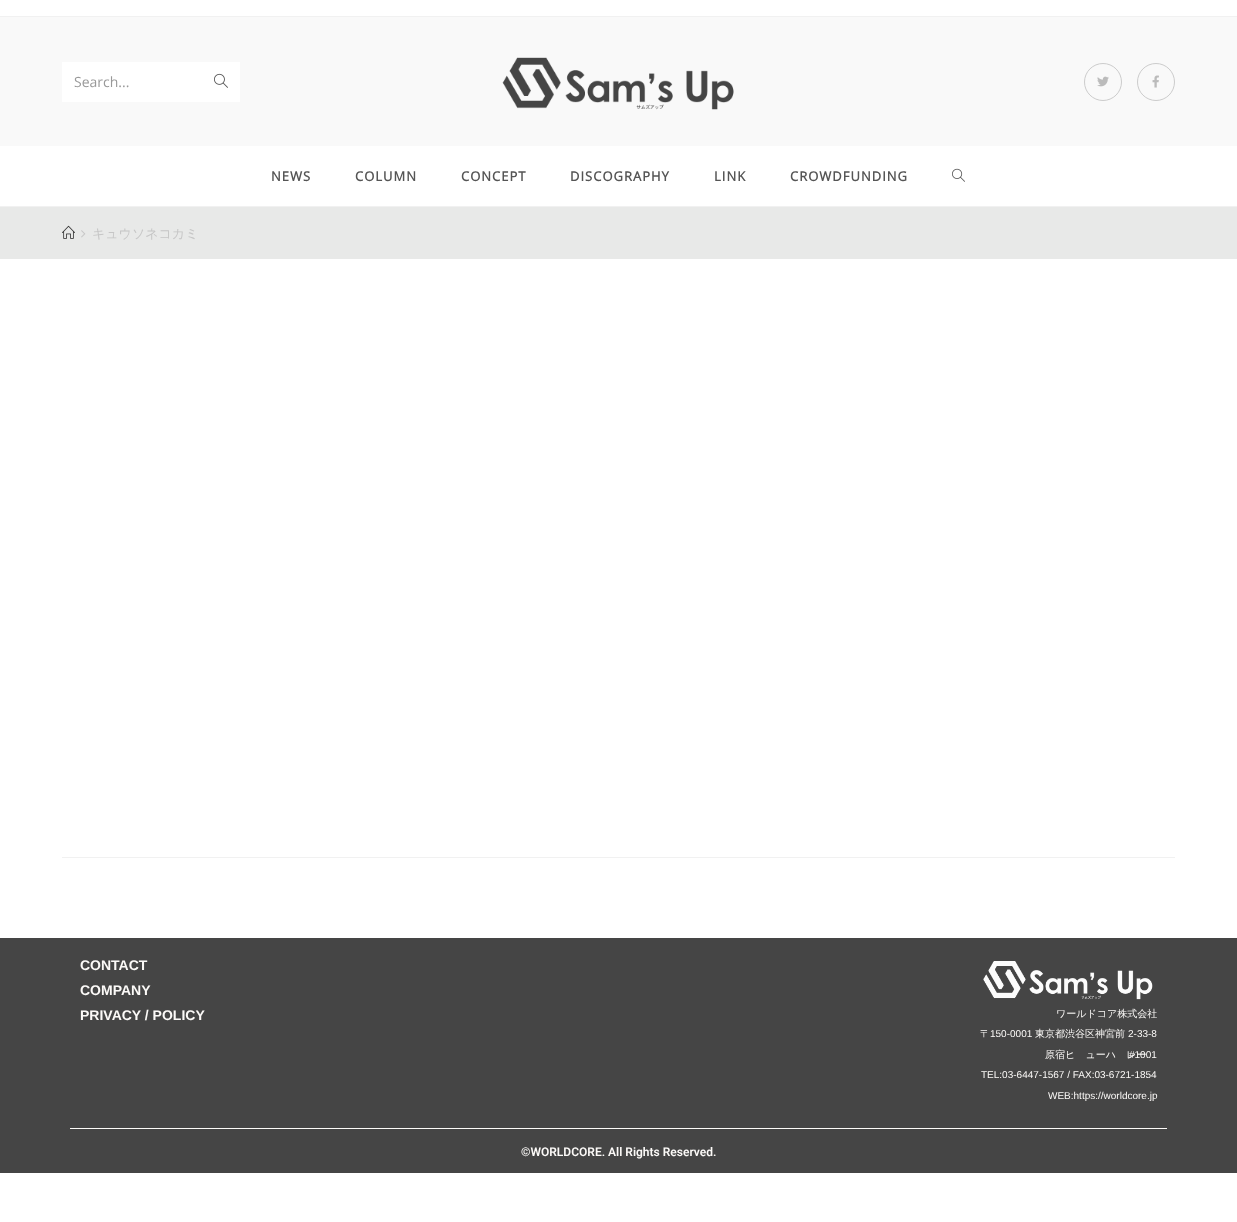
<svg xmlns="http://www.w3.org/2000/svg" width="1237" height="1222">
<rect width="100%" height="100%" fill="#fff"/>
<rect y="16" width="1237" height="1" fill="#f1f1f1"/>
<rect y="206" width="1237" height="1" fill="#f1f1f1"/>
<rect y="17" width="1237" height="129" fill="#f9f9f9"/>
<rect x="62" y="62" width="178" height="40" fill="#fff"/>
<text x="74" y="87" style="font-family:Open Sans;font-size:14px;fill:#999">Search...</text>
<image x="214" y="73" width="14" height="15" href="media/1.png"/>
<image x="502" y="57" width="232" height="53" href="media/2.png"/>
<circle cx="1103" cy="82" r="18.5" fill="none" stroke="#ccc"/>
<image x="1097" y="76" width="12" height="11" href="media/3.png"/>
<circle cx="1156" cy="82" r="18.5" fill="none" stroke="#ccc"/>
<image x="1152" y="75" width="7" height="13" href="media/4.png"/>
<text x="271" y="181" style="font-family:Open Sans;font-size:13px;font-weight:bold;letter-spacing:1px;fill:#555">NEWS</text>
<text x="355" y="181" style="font-family:Open Sans;font-size:13px;font-weight:bold;letter-spacing:1px;fill:#555">COLUMN</text>
<text x="461" y="181" style="font-family:Open Sans;font-size:13px;font-weight:bold;letter-spacing:1px;fill:#555">CONCEPT</text>
<text x="570" y="181" style="font-family:Open Sans;font-size:13px;font-weight:bold;letter-spacing:1px;fill:#555">DISCOGRAPHY</text>
<text x="714" y="181" style="font-family:Open Sans;font-size:13px;font-weight:bold;letter-spacing:1px;fill:#555">LINK</text>
<text x="790" y="181" style="font-family:Open Sans;font-size:13px;font-weight:bold;letter-spacing:1px;fill:#555">CROWDFUNDING</text>
<image x="952" y="168" width="13" height="14" href="media/5.png"/>
<rect y="207" width="1237" height="52" fill="#e8e9e8"/>
<image x="62" y="225" width="13" height="14" href="media/6.png"/>
<image x="81" y="230" width="5" height="8" href="media/7.png"/>
<text x="92" y="238" style="font-family:WenQuanYi Zen Hei;font-size:13px;font-weight:500;fill:#c6c6c6">キュウソネコカミ</text>
<rect x="62" y="857" width="1113" height="1" fill="#f1f1f1"/>
<rect y="938" width="1237" height="235" fill="#454545"/>
<text x="80" y="970" style="font-family:Liberation Sans;font-size:14px;font-weight:bold;fill:#fcfaf8">CONTACT</text>
<text x="80" y="995" style="font-family:Liberation Sans;font-size:14px;font-weight:bold;fill:#fcfaf8">COMPANY</text>
<text x="80" y="1020" style="font-family:Liberation Sans;font-size:14px;font-weight:bold;fill:#fcfaf8">PRIVACY / POLICY</text>
<image x="983" y="961" width="170" height="39" href="media/8.png"/>
<text x="1056" y="1017" style="font-family:WenQuanYi Zen Hei;font-size:10px;font-weight:500;fill:#fcfaf8">ワールドコア株式会社</text>
<text x="980" y="1037" style="font-family:WenQuanYi Zen Hei;font-size:10px;font-weight:500;fill:#fcfaf8">〒</text>
<text x="990" y="1037" style="font-family:Liberation Sans;font-size:10px;fill:#fcfaf8">150‐0001</text>
<text x="1035" y="1037" style="font-family:WenQuanYi Zen Hei;font-size:10px;font-weight:500;fill:#fcfaf8">東京都渋谷区神宮前</text>
<text x="1128" y="1037" style="font-family:Liberation Sans;font-size:10px;fill:#fcfaf8">2-33-8</text>
<text x="1045" y="1058" style="font-family:WenQuanYi Zen Hei;font-size:10px;font-weight:500;fill:#fcfaf8">原宿ビューパレー</text>
<text x="1129" y="1058" style="font-family:Liberation Sans;font-size:10px;fill:#fcfaf8">#1001</text>
<text x="981" y="1078" style="font-family:Liberation Sans;font-size:10px;fill:#fcfaf8">TEL:03-6447-1567 / FAX:03-6721-1854</text>
<text x="1048" y="1099" style="font-family:Liberation Sans;font-size:10px;fill:#fcfaf8">WEB:https://worldcore.jp</text>
<rect x="70" y="1128" width="1097" height="1" fill="#fcfaf8"/>
<text x="521" y="1156" style="font-family:Roboto;font-size:12px;font-weight:600;fill:#fcfaf8">©WORLDCORE. All Rights Reserved.</text>
</svg>
